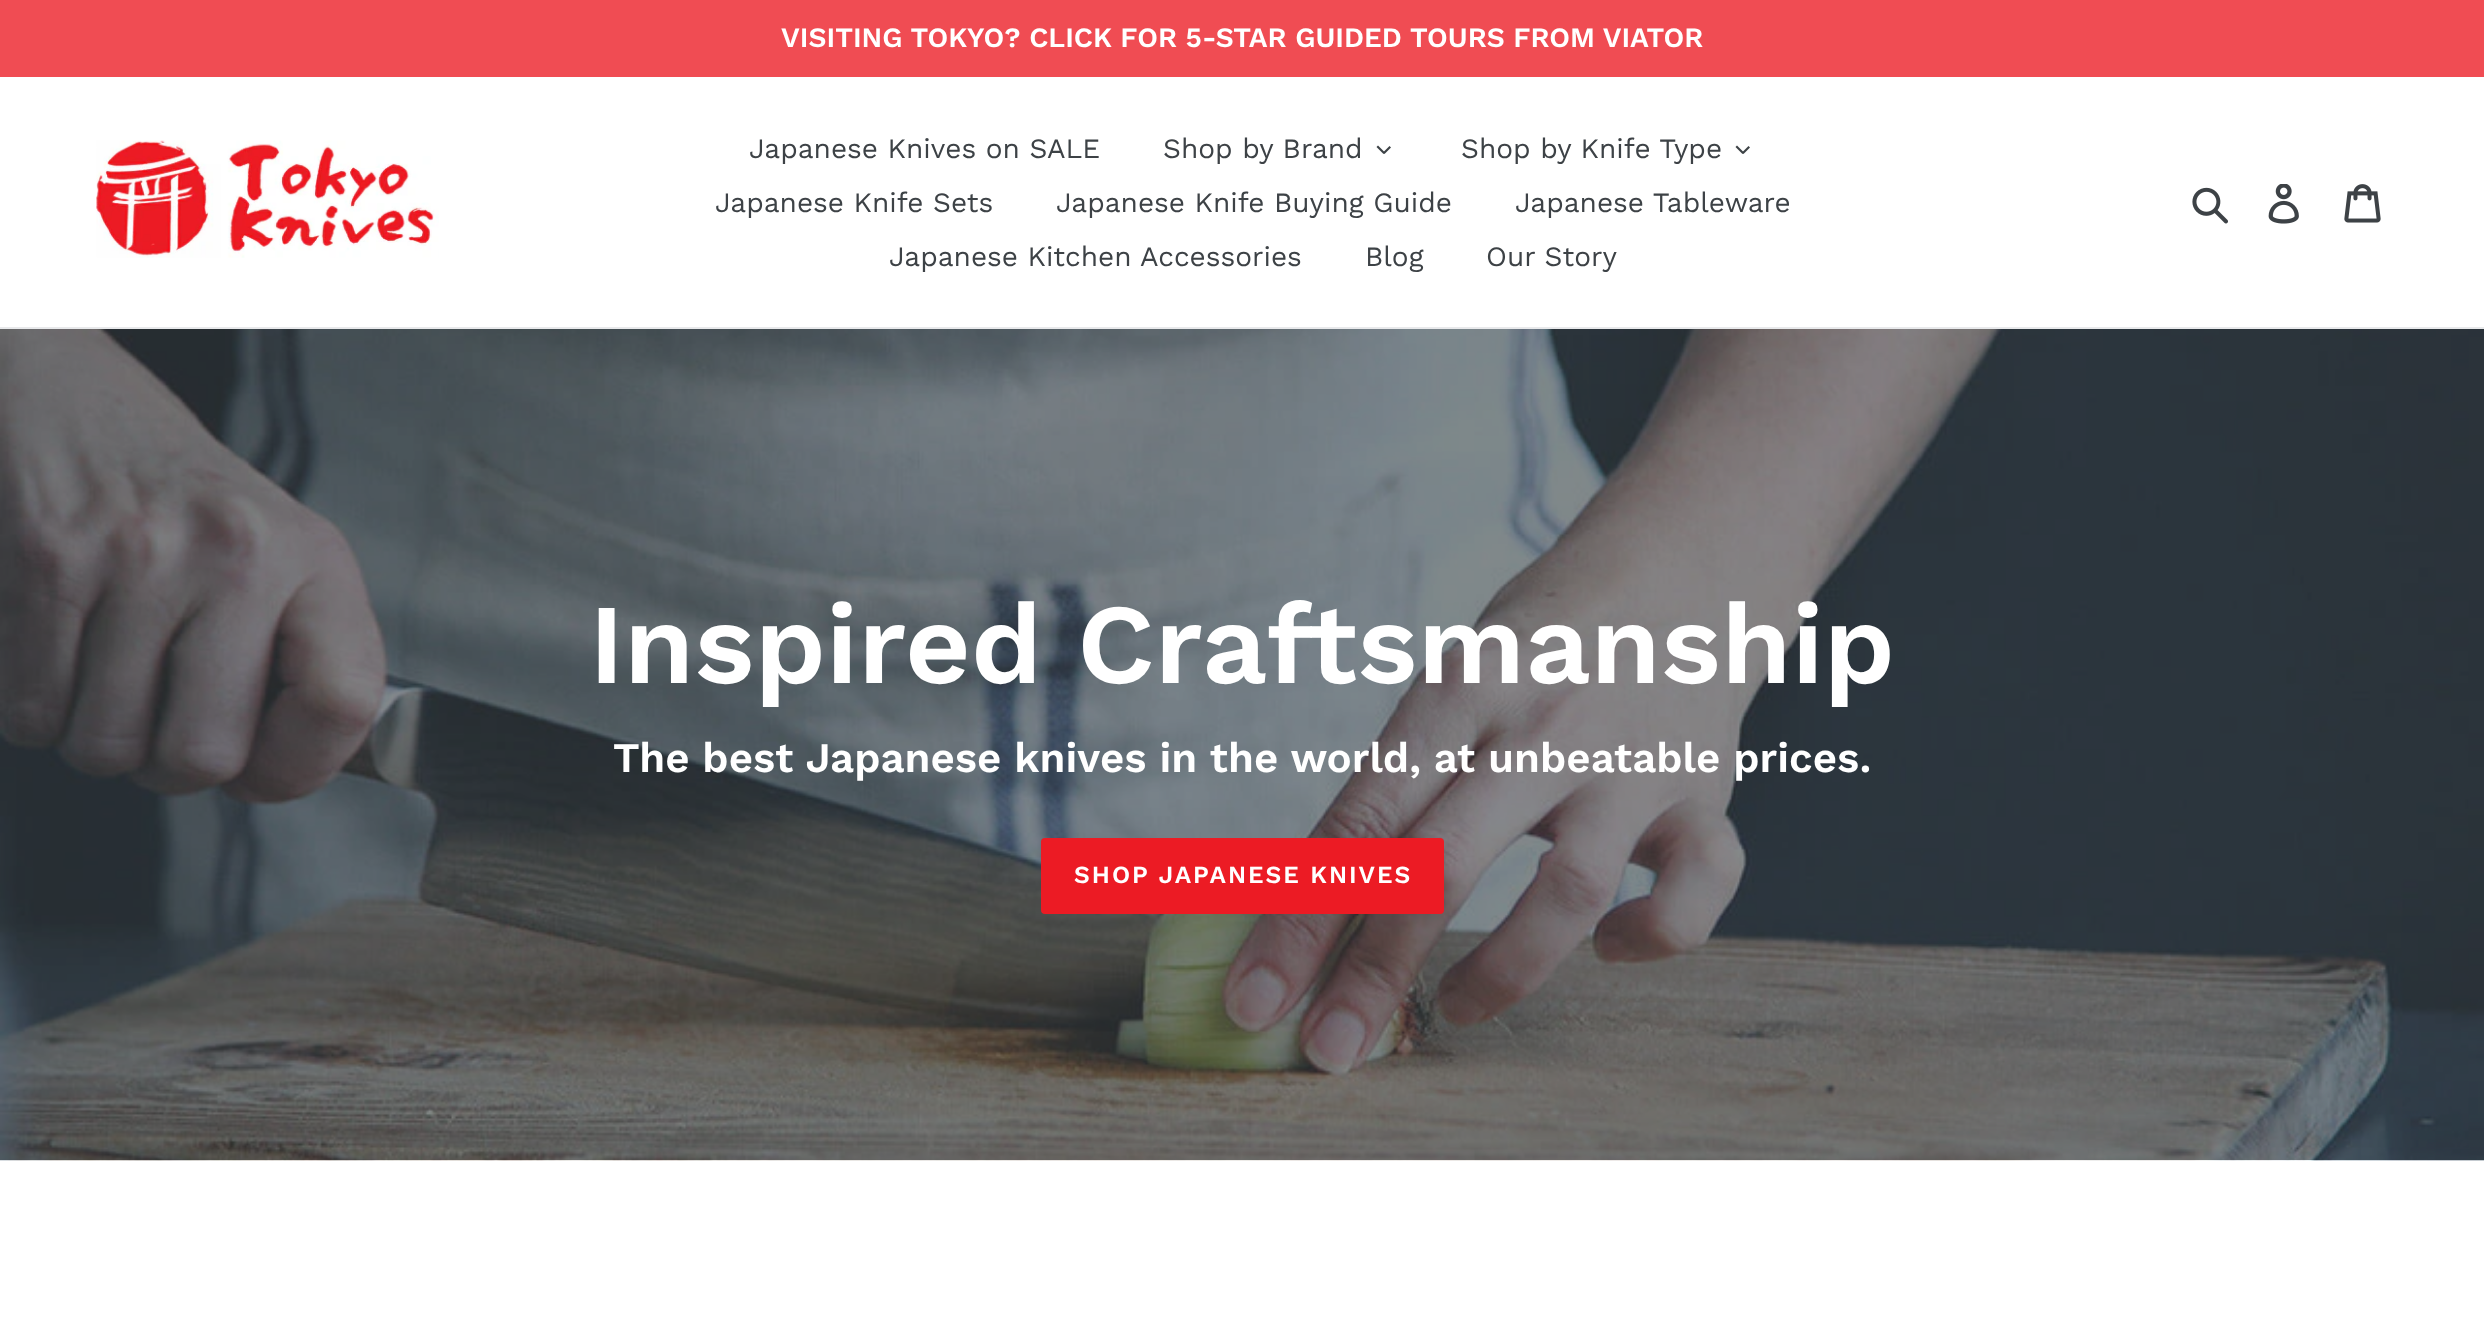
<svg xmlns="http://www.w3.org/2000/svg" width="2484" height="1328">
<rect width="100%" height="100%" fill="#fff"/>
<rect width="2484" height="77" fill="#f04c53"/>
<text x="781" y="47" style="font-family:Work Sans;font-size:28px;font-weight:600;fill:#fff">VISITING TOKYO? CLICK FOR 5-STAR GUIDED TOURS FROM VIATOR</text>
<rect y="327" width="2484" height="2" fill="#e8e9eb"/>
<image x="96" y="140" width="343" height="118" href="media/1.png"/>
<text x="749" y="158" style="font-family:Work Sans;font-size:28px;fill:#3d4246">Japanese Knives on SALE</text>
<text x="1163" y="158" style="font-family:Work Sans;font-size:28px;fill:#3d4246">Shop by Brand</text>
<path d="M1389.5 146l1.5 1.5l-6.5 6.5l-1.5-1.5z" fill="#3d4246"/>
<path d="M1378 145.5l7 7l-1.5 1.5l-7-7z" fill="#3d4246"/>
<text x="1461" y="158" style="font-family:Work Sans;font-size:28px;fill:#3d4246">Shop by Knife Type</text>
<path d="M1748.5 146l1.5 1.5l-6.5 6.5l-1.5-1.5z" fill="#3d4246"/>
<path d="M1737 145.5l7 7l-1.5 1.5l-7-7z" fill="#3d4246"/>
<text x="715" y="212" style="font-family:Work Sans;font-size:28px;fill:#3d4246">Japanese Knife Sets</text>
<text x="1056" y="212" style="font-family:Work Sans;font-size:28px;fill:#3d4246">Japanese Knife Buying Guide</text>
<text x="1515" y="212" style="font-family:Work Sans;font-size:28px;fill:#3d4246">Japanese Tableware</text>
<text x="889" y="266" style="font-family:Work Sans;font-size:28px;fill:#3d4246">Japanese Kitchen Accessories</text>
<text x="1365" y="266" style="font-family:Work Sans;font-size:28px;fill:#3d4246">Blog</text>
<text x="1486" y="266" style="font-family:Work Sans;font-size:28px;fill:#3d4246">Our Story</text>
<image x="2192" y="187" width="36" height="37" href="media/2.png"/>
<image x="2268" y="184" width="31" height="40" href="media/3.png"/>
<image x="2344" y="184" width="37" height="39" href="media/4.png"/>
<image x="0" y="329" width="2484" height="832" href="media/5.png"/>
<text x="589" y="683" style="font-family:Work Sans;font-size:113.75px;font-weight:600;fill:#fff">Inspired Craftsmanship</text>
<text x="613" y="772" style="font-family:Work Sans;font-size:42px;font-weight:600;fill:#fff">The best Japanese knives in the world, at unbeatable prices.</text>
<rect x="1041" y="838" width="403" height="76" rx="4" fill="#ec1b24"/>
<text x="1074" y="883" style="font-family:Work Sans;font-size:24.5px;font-weight:600;letter-spacing:2px;fill:#fff">SHOP JAPANESE KNIVES</text>
</svg>
